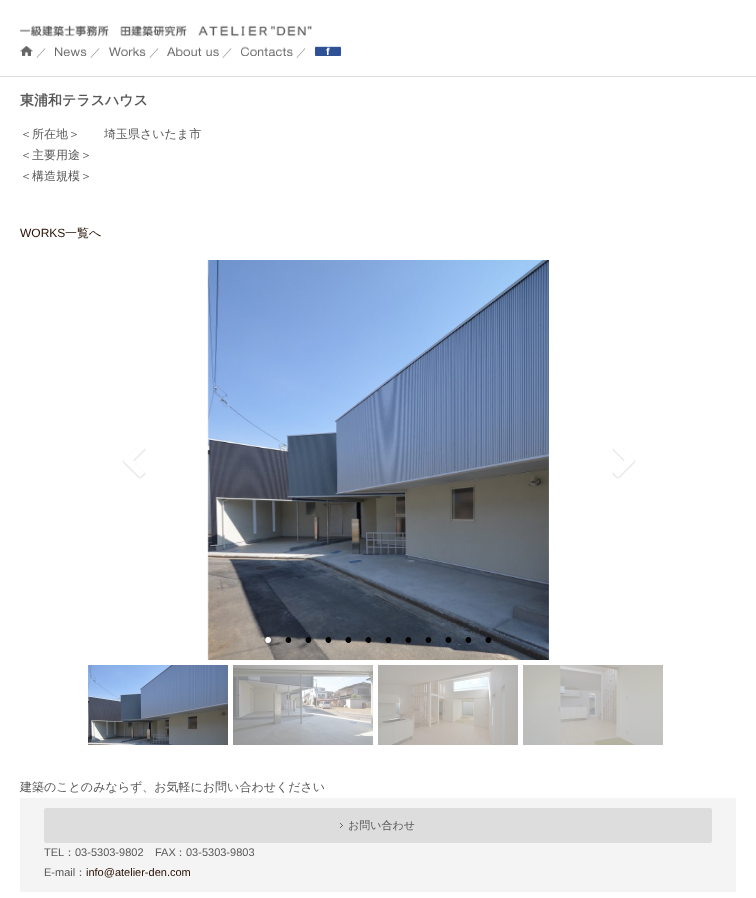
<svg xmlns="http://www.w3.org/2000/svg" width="756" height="898">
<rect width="100%" height="100%" fill="#fff"/>
<rect y="76" width="756" height="1" fill="#ddd"/>
<image x="20" y="25" width="292" height="12" href="media/1.png"/>
<image x="20" y="46" width="13" height="10" href="media/2.png"/>
<text x="36" y="56" style="font-family:WenQuanYi Zen Hei;font-size:11px;font-weight:500;fill:#999">／</text>
<image x="55" y="46" width="32" height="10" href="media/3.png"/>
<text x="90" y="56" style="font-family:WenQuanYi Zen Hei;font-size:11px;font-weight:500;fill:#999">／</text>
<image x="109" y="46" width="37" height="10" href="media/4.png"/>
<text x="149" y="56" style="font-family:WenQuanYi Zen Hei;font-size:11px;font-weight:500;fill:#999">／</text>
<image x="167" y="46" width="52" height="10" href="media/5.png"/>
<text x="222" y="56" style="font-family:WenQuanYi Zen Hei;font-size:11px;font-weight:500;fill:#999">／</text>
<image x="241" y="46" width="52" height="10" href="media/6.png"/>
<text x="296" y="56" style="font-family:WenQuanYi Zen Hei;font-size:11px;font-weight:500;fill:#999">／</text>
<image x="315" y="46" width="26" height="10" href="media/7.png"/>
<text x="20" y="105" style="font-family:WenQuanYi Zen Hei;font-size:14px;font-weight:bold;fill:#585858">東浦和テラスハウス</text>
<text x="20" y="138" style="font-family:WenQuanYi Zen Hei;font-size:12px;font-weight:500;fill:#585858">＜所在地＞</text>
<text x="104" y="138" style="font-family:WenQuanYi Zen Hei;font-size:12px;font-weight:500;fill:#585858">埼玉県さいたま市</text>
<text x="20" y="159" style="font-family:WenQuanYi Zen Hei;font-size:12px;font-weight:500;fill:#585858">＜主要用途＞</text>
<text x="20" y="180" style="font-family:WenQuanYi Zen Hei;font-size:12px;font-weight:500;fill:#585858">＜構造規模＞</text>
<text x="20" y="237" style="font-family:Liberation Sans;font-size:12px;fill:#250d00">WORKS</text>
<text x="65" y="237" style="font-family:WenQuanYi Zen Hei;font-size:12px;font-weight:500;fill:#250d00">一覧へ</text>
<image x="122" y="448" width="24" height="32" href="media/8.png"/>
<image x="207" y="260" width="342" height="400" href="media/9.png"/>
<image x="612" y="448" width="24" height="32" href="media/10.png"/>
<image x="263" y="635" width="10" height="10" href="media/11.png"/>
<image x="285" y="637" width="7" height="6" href="media/12.png"/>
<image x="305" y="637" width="7" height="6" href="media/13.png"/>
<image x="325" y="637" width="7" height="6" href="media/14.png"/>
<image x="345" y="637" width="7" height="6" href="media/15.png"/>
<image x="365" y="637" width="7" height="6" href="media/16.png"/>
<image x="385" y="637" width="7" height="6" href="media/17.png"/>
<image x="405" y="637" width="7" height="6" href="media/18.png"/>
<image x="425" y="637" width="7" height="6" href="media/19.png"/>
<image x="445" y="637" width="7" height="6" href="media/20.png"/>
<image x="465" y="637" width="7" height="6" href="media/21.png"/>
<image x="485" y="637" width="7" height="6" href="media/22.png"/>
<image x="88" y="665" width="140" height="80" href="media/23.png"/>
<image x="233" y="665" width="140" height="80" href="media/24.png"/>
<image x="378" y="665" width="140" height="80" href="media/25.png"/>
<image x="523" y="665" width="140" height="80" href="media/26.png"/>
<text x="20" y="791" style="font-family:WenQuanYi Zen Hei;font-size:12px;font-weight:500;fill:#585858">建築のことのみならず、お気軽にお問い合わせください</text>
<rect x="20" y="798" width="716" height="94" fill="#f4f4f4"/>
<rect x="44" y="808" width="668" height="35" rx="2" fill="#ddd"/>
<image x="340" y="823" width="3" height="5" href="media/27.png"/>
<text x="348" y="829" style="font-family:WenQuanYi Zen Hei;font-size:11px;font-weight:500;fill:#585858">お問い合わせ</text>
<text x="44" y="856" style="font-family:Liberation Sans;font-size:11px;fill:#585858">TEL</text>
<text x="64" y="856" style="font-family:WenQuanYi Zen Hei;font-size:11px;font-weight:500;fill:#585858">：</text>
<text x="75" y="856" style="font-family:Liberation Sans;font-size:11px;fill:#585858">03-5303-9802</text>
<text x="155" y="856" style="font-family:Liberation Sans;font-size:11px;fill:#585858">FAX</text>
<text x="175" y="856" style="font-family:WenQuanYi Zen Hei;font-size:11px;font-weight:500;fill:#585858">：</text>
<text x="186" y="856" style="font-family:Liberation Sans;font-size:11px;fill:#585858">03-5303-9803</text>
<text x="44" y="876" style="font-family:Liberation Sans;font-size:11px;fill:#585858">E-mail</text>
<text x="75" y="876" style="font-family:WenQuanYi Zen Hei;font-size:11px;font-weight:500;fill:#585858">：</text>
<text x="86" y="876" style="font-family:Liberation Sans;font-size:11px;fill:#250d00">info@atelier-den.com</text>
</svg>
